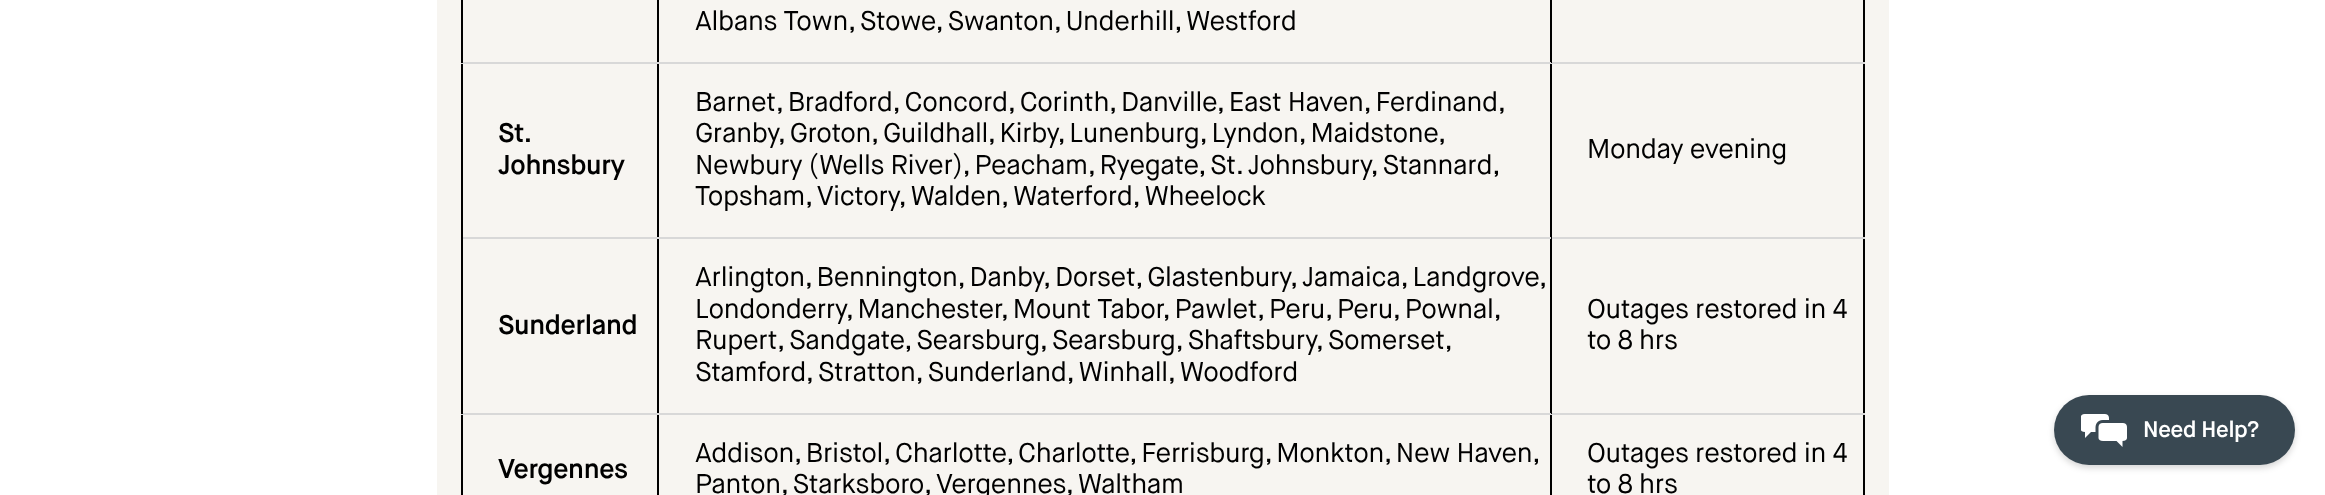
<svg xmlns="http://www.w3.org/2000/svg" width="2325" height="495">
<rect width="100%" height="100%" fill="#fff"/>
<rect x="437" width="1452" height="495" fill="#f7f5f1"/>
<rect x="1863" width="2" height="495" fill="#000"/>
<rect x="1550" y="413" width="2" height="82" fill="#000"/>
<rect x="1550" y="413" width="315" height="2" fill="#d8d8d8"/>
<rect x="1550" y="237" width="2" height="177" fill="#000"/>
<rect x="1550" y="237" width="315" height="2" fill="#d8d8d8"/>
<rect x="1550" y="62" width="2" height="177" fill="#000"/>
<rect x="1550" y="62" width="315" height="2" fill="#d8d8d8"/>
<rect x="1550" width="2" height="63" fill="#000"/>
<rect x="657" y="413" width="2" height="82" fill="#000"/>
<rect x="657" y="413" width="894" height="2" fill="#d8d8d8"/>
<rect x="657" y="237" width="2" height="177" fill="#000"/>
<rect x="657" y="237" width="894" height="2" fill="#d8d8d8"/>
<rect x="657" y="62" width="2" height="177" fill="#000"/>
<rect x="657" y="62" width="894" height="2" fill="#d8d8d8"/>
<rect x="657" width="2" height="63" fill="#000"/>
<rect x="461" y="413" width="2" height="82" fill="#000"/>
<rect x="461" y="413" width="198" height="2" fill="#d8d8d8"/>
<rect x="461" y="237" width="2" height="177" fill="#000"/>
<rect x="461" y="237" width="198" height="2" fill="#d8d8d8"/>
<rect x="461" y="62" width="2" height="177" fill="#000"/>
<rect x="461" y="62" width="198" height="2" fill="#d8d8d8"/>
<rect x="461" width="2" height="63" fill="#000"/>
<text x="695" y="30" style="font-family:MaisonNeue;font-size:27px;letter-spacing:-0.35px;fill:#000">Albans Town, Stowe, Swanton, Underhill, Westford</text>
<text x="498" y="142" style="font-family:MaisonNeue;font-size:27px;font-weight:600;letter-spacing:-0.35px;fill:#000">St.</text>
<text x="498" y="174" style="font-family:MaisonNeue;font-size:27px;font-weight:600;letter-spacing:-0.35px;fill:#000">Johnsbury</text>
<text x="695" y="111" style="font-family:MaisonNeue;font-size:27px;letter-spacing:-0.35px;fill:#000">Barnet, Bradford, Concord, Corinth, Danville, East Haven, Ferdinand,</text>
<text x="695" y="142" style="font-family:MaisonNeue;font-size:27px;letter-spacing:-0.35px;fill:#000">Granby, Groton, Guildhall, Kirby, Lunenburg, Lyndon, Maidstone,</text>
<text x="695" y="174" style="font-family:MaisonNeue;font-size:27px;letter-spacing:-0.35px;fill:#000">Newbury (Wells River), Peacham, Ryegate, St. Johnsbury, Stannard,</text>
<text x="695" y="205" style="font-family:MaisonNeue;font-size:27px;letter-spacing:-0.35px;fill:#000">Topsham, Victory, Walden, Waterford, Wheelock</text>
<text x="1587" y="158" style="font-family:MaisonNeue;font-size:27px;letter-spacing:-0.35px;fill:#000">Monday evening</text>
<text x="498" y="334" style="font-family:MaisonNeue;font-size:27px;font-weight:600;letter-spacing:-0.35px;fill:#000">Sunderland</text>
<text x="695" y="286" style="font-family:MaisonNeue;font-size:27px;letter-spacing:-0.35px;fill:#000">Arlington, Bennington, Danby, Dorset, Glastenbury, Jamaica, Landgrove,</text>
<text x="695" y="318" style="font-family:MaisonNeue;font-size:27px;letter-spacing:-0.35px;fill:#000">Londonderry, Manchester, Mount Tabor, Pawlet, Peru, Peru, Pownal,</text>
<text x="695" y="349" style="font-family:MaisonNeue;font-size:27px;letter-spacing:-0.35px;fill:#000">Rupert, Sandgate, Searsburg, Searsburg, Shaftsbury, Somerset,</text>
<text x="695" y="381" style="font-family:MaisonNeue;font-size:27px;letter-spacing:-0.35px;fill:#000">Stamford, Stratton, Sunderland, Winhall, Woodford</text>
<text x="1587" y="318" style="font-family:MaisonNeue;font-size:27px;letter-spacing:-0.35px;fill:#000">Outages restored in 4</text>
<text x="1587" y="349" style="font-family:MaisonNeue;font-size:27px;letter-spacing:-0.35px;fill:#000">to 8 hrs</text>
<text x="498" y="478" style="font-family:MaisonNeue;font-size:27px;font-weight:600;letter-spacing:-0.35px;fill:#000">Vergennes</text>
<text x="695" y="462" style="font-family:MaisonNeue;font-size:27px;letter-spacing:-0.35px;fill:#000">Addison, Bristol, Charlotte, Charlotte, Ferrisburg, Monkton, New Haven,</text>
<text x="695" y="493" style="font-family:MaisonNeue;font-size:27px;letter-spacing:-0.35px;fill:#000">Panton, Starksboro, Vergennes, Waltham</text>
<text x="1587" y="462" style="font-family:MaisonNeue;font-size:27px;letter-spacing:-0.35px;fill:#000">Outages restored in 4</text>
<text x="1587" y="493" style="font-family:MaisonNeue;font-size:27px;letter-spacing:-0.35px;fill:#000">to 8 hrs</text>
<rect x="2054" y="398" width="241" height="70" rx="35" fill="#00000029" filter="blur(3px)"/>
<rect x="2054" y="395" width="241" height="70" rx="35" fill="#394852"/>
<image x="2081" y="414" width="46" height="33" href="media/1.png"/>
<text x="2143" y="437" style="font-family:MaisonNeue;font-size:22.5px;font-weight:600;letter-spacing:-0.35px;fill:#fff">Need Help?</text>
</svg>
